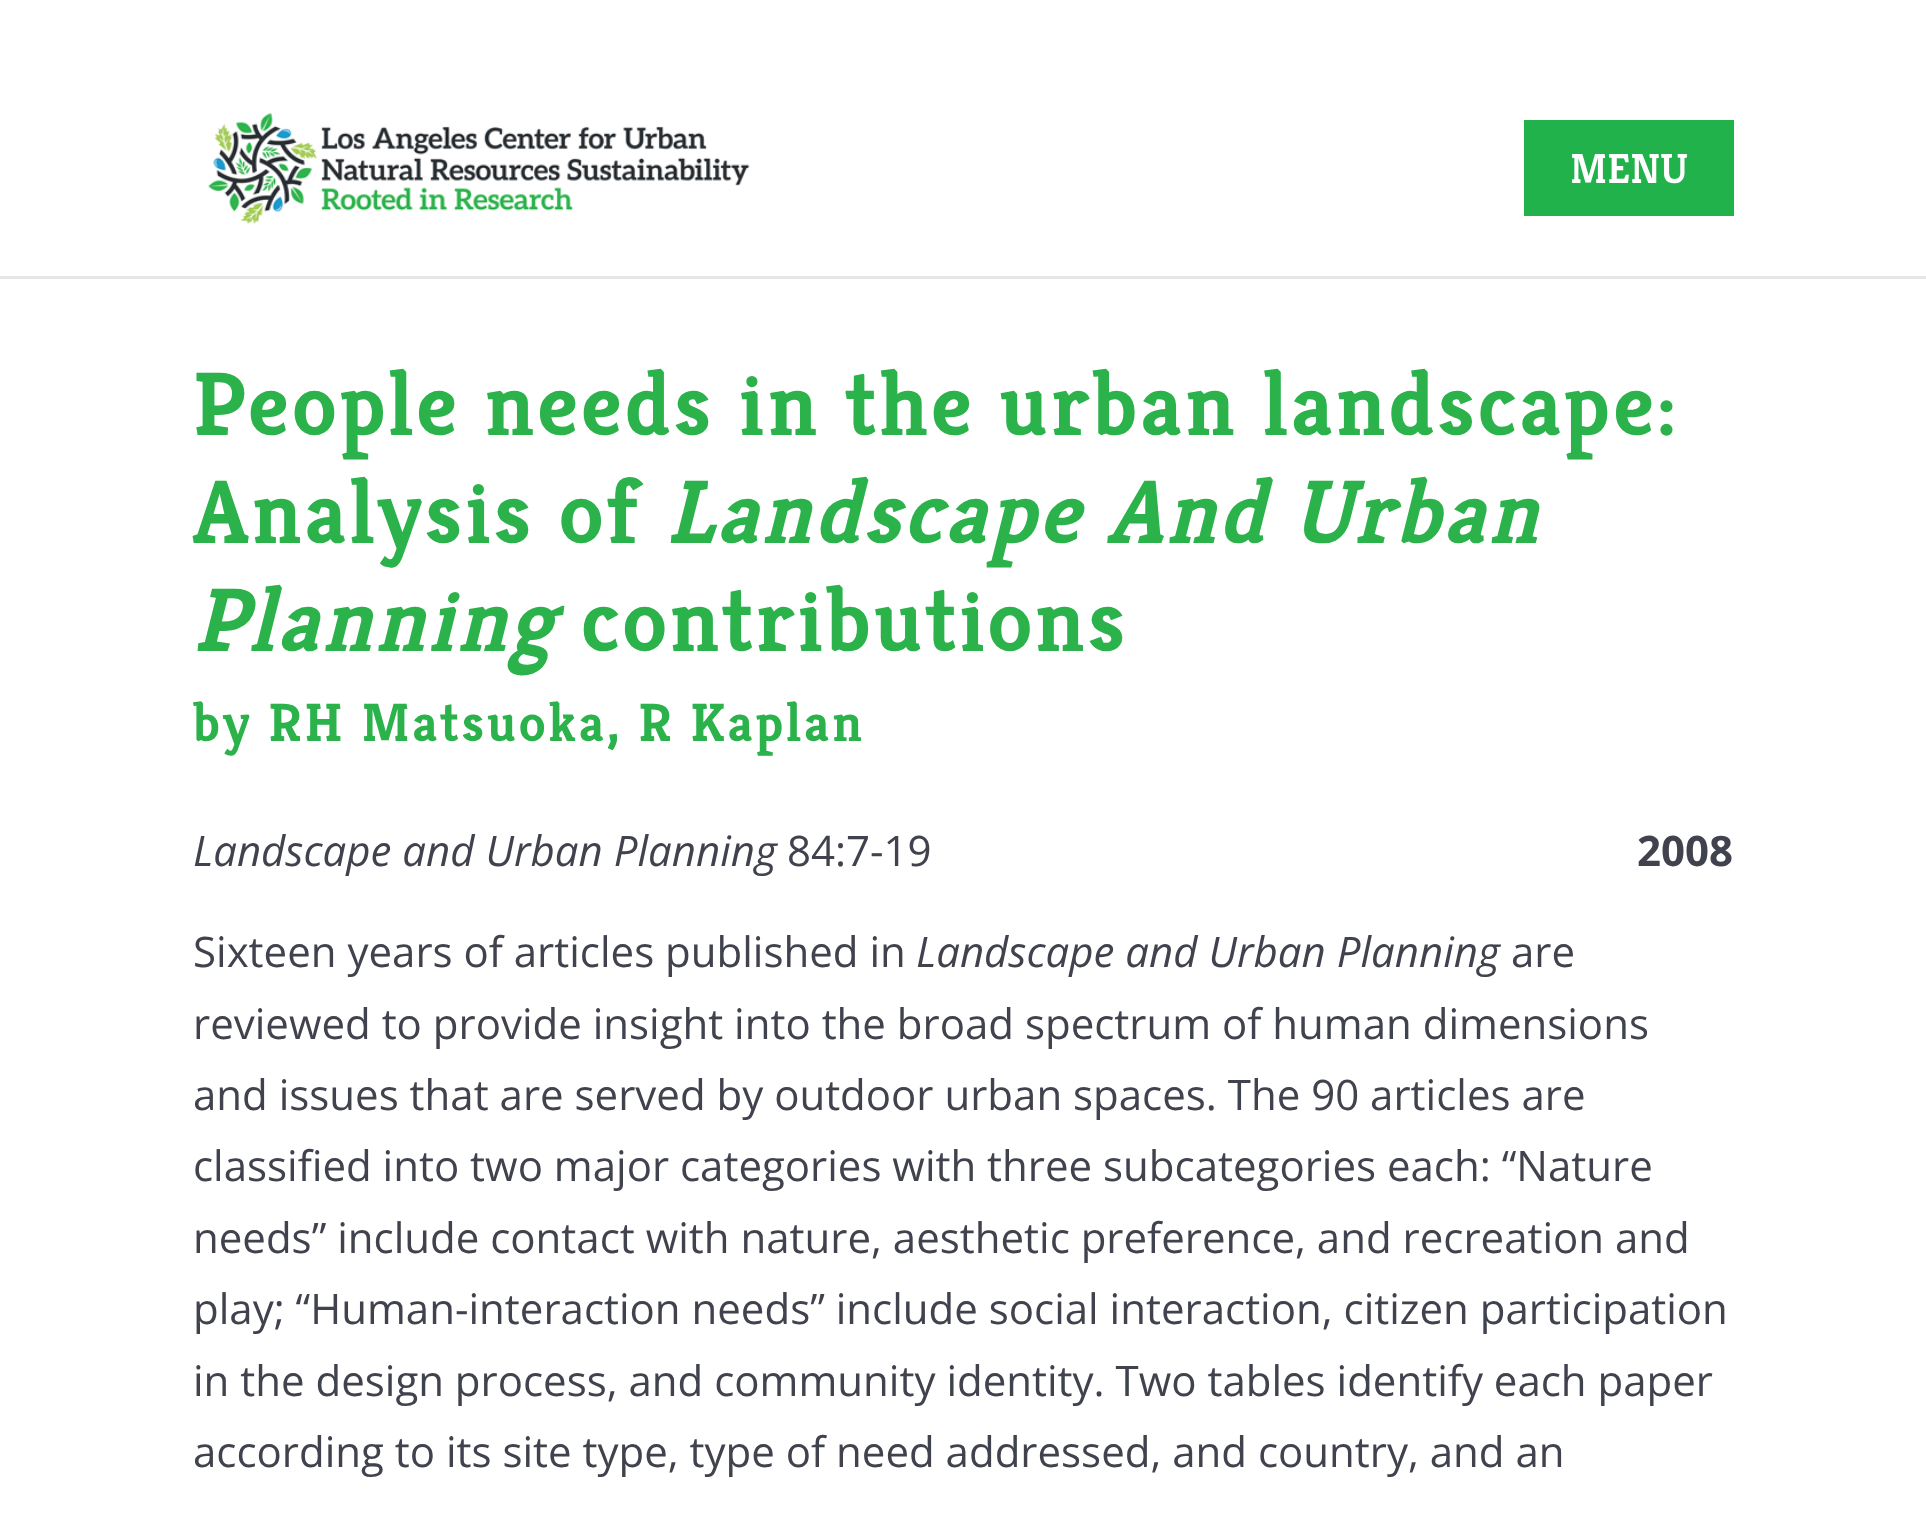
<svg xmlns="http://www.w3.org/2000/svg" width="1926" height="1523">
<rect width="100%" height="100%" fill="#fff"/>
<rect y="276" width="1926" height="3" fill="#e6e6e6"/>
<image x="208" y="113" width="542" height="111" href="media/1.png"/>
<rect x="1524" y="120" width="210" height="96" fill="#22b24b"/>
<text x="1570" y="183" style="font-family:Kreon;font-size:42px;font-weight:600;fill:#fff">MENU</text>
<text x="193" y="435" style="font-family:Kreon;font-size:90px;font-weight:bold;letter-spacing:3px;fill:#2bb24b">People needs in the urban landscape:</text>
<text x="193" y="543" style="font-family:Kreon;font-size:90px;font-weight:bold;letter-spacing:3px;fill:#2bb24b">Analysis of</text>
<text x="666" y="543" style="font-family:Kreon;font-size:90px;font-weight:bold;font-style:italic;letter-spacing:3px;fill:#2bb24b">Landscape And Urban</text>
<text x="193" y="651" style="font-family:Kreon;font-size:90px;font-weight:bold;font-style:italic;letter-spacing:3px;fill:#2bb24b">Planning</text>
<text x="581" y="651" style="font-family:Kreon;font-size:90px;font-weight:bold;letter-spacing:3px;fill:#2bb24b">contributions</text>
<text x="193" y="741" style="font-family:Kreon;font-size:54px;font-weight:bold;letter-spacing:3px;fill:#2bb24b">by RH Matsuoka, R Kaplan</text>
<text x="193" y="866" style="font-family:Open Sans;font-size:42px;font-style:italic;fill:#40424d">Landscape and Urban Planning</text>
<text x="787" y="866" style="font-family:Open Sans;font-size:42px;fill:#40424d">84:7-19</text>
<text x="1637" y="866" style="font-family:Open Sans;font-size:42px;font-weight:bold;fill:#40424d">2008</text>
<text x="193" y="967" style="font-family:Open Sans;font-size:42px;fill:#40424d">Sixteen years of articles published in</text>
<text x="916" y="967" style="font-family:Open Sans;font-size:42px;font-style:italic;fill:#40424d">Landscape and Urban Planning</text>
<text x="1511" y="967" style="font-family:Open Sans;font-size:42px;fill:#40424d">are</text>
<text x="193" y="1039" style="font-family:Open Sans;font-size:42px;fill:#40424d">reviewed to provide insight into the broad spectrum of human dimensions</text>
<text x="193" y="1110" style="font-family:Open Sans;font-size:42px;fill:#40424d">and issues that are served by outdoor urban spaces. The 90 articles are</text>
<text x="193" y="1181" style="font-family:Open Sans;font-size:42px;fill:#40424d">classified into two major categories with three subcategories each: “Nature</text>
<text x="193" y="1253" style="font-family:Open Sans;font-size:42px;fill:#40424d">needs” include contact with nature, aesthetic preference, and recreation and</text>
<text x="193" y="1324" style="font-family:Open Sans;font-size:42px;fill:#40424d">play; “Human-interaction needs” include social interaction, citizen participation</text>
<text x="193" y="1396" style="font-family:Open Sans;font-size:42px;fill:#40424d">in the design process, and community identity. Two tables identify each paper</text>
<text x="193" y="1467" style="font-family:Open Sans;font-size:42px;fill:#40424d">according to its site type, type of need addressed, and country, and an</text>
</svg>
